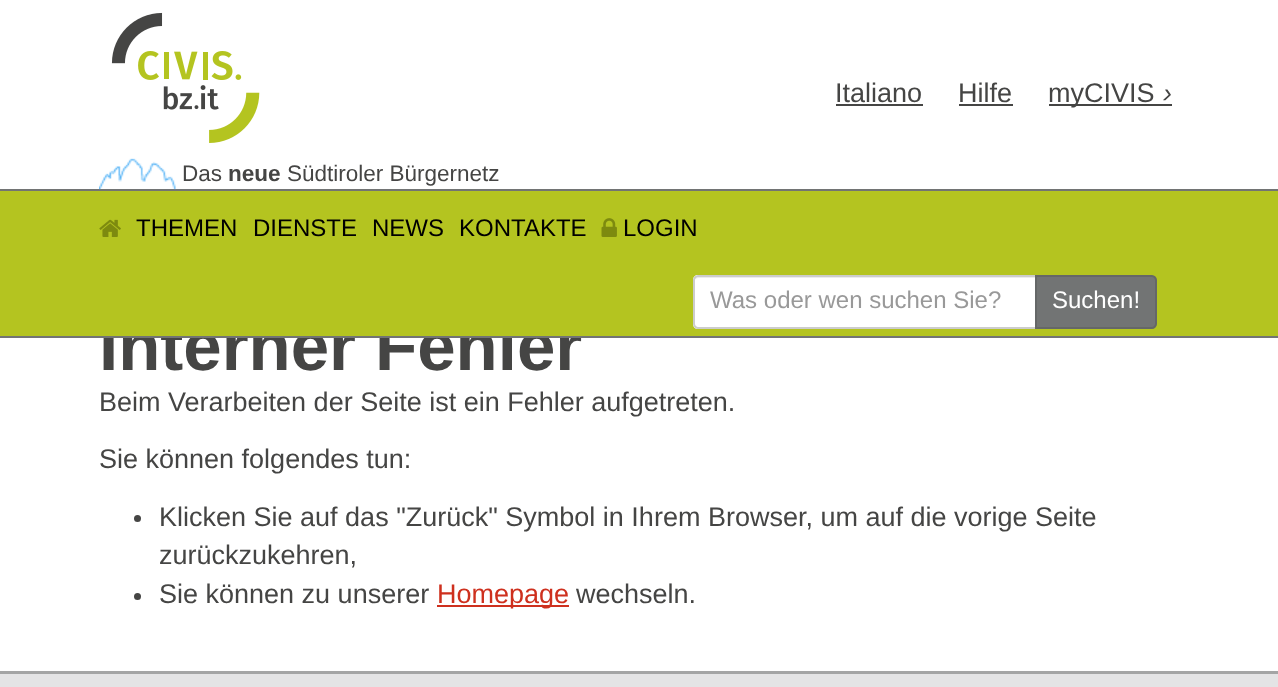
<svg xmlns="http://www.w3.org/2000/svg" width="1278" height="687">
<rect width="100%" height="100%" fill="#fff"/>
<rect y="189" width="1278" height="2" fill="#727474"/>
<image x="111" y="12" width="149" height="131" href="media/1.png"/>
<text x="835" y="102" style="font-family:Liberation Sans;font-size:27px;fill:#454544">Italiano</text>
<rect x="836" y="104" width="87" height="2" fill="#454544"/>
<text x="958" y="102" style="font-family:Liberation Sans;font-size:27px;fill:#454544">Hilfe</text>
<rect x="959" y="104" width="54" height="2" fill="#454544"/>
<rect x="1049" y="104" width="123" height="2" fill="#454544"/>
<text x="1048" y="102" style="font-family:Liberation Sans;font-size:27px;fill:#454544">myCIVIS</text>
<text x="1163" y="102" style="font-family:Liberation Sans;font-size:27px;font-style:italic;fill:#454544">›</text>
<image x="99" y="158" width="77" height="32" href="media/2.png"/>
<text x="182" y="181" style="font-family:Liberation Sans;font-size:22.5px;fill:#454544">Das</text>
<text x="228" y="181" style="font-family:Liberation Sans;font-size:22.5px;font-weight:bold;fill:#454544">neue</text>
<text x="287" y="181" style="font-family:Liberation Sans;font-size:22.5px;fill:#454544">Südtiroler Bürgernetz</text>
<text x="99" y="370" style="font-family:Liberation Sans;font-size:69px;font-weight:bold;fill:#454544">Interner Fehler</text>
<rect y="191" width="1278" height="145" fill="#b4c420"/>
<rect y="336" width="1278" height="2" fill="#727474"/>
<image x="99" y="219" width="22" height="18" href="media/3.png"/>
<text x="136" y="236" style="font-family:Liberation Sans;font-size:24px;fill:#000">THEMEN</text>
<text x="253" y="236" style="font-family:Liberation Sans;font-size:24px;fill:#000">DIENSTE</text>
<text x="372" y="236" style="font-family:Liberation Sans;font-size:24px;fill:#000">NEWS</text>
<text x="459" y="236" style="font-family:Liberation Sans;font-size:24px;fill:#000">KONTAKTE</text>
<image x="601" y="218" width="16" height="19" href="media/4.png"/>
<text x="623" y="236" style="font-family:Liberation Sans;font-size:24px;fill:#000">LOGIN</text>
<path d="M698 275h339v54h-339c-3 0-5-2-5-5v-44c0-3 2-5 5-5z" fill="#fff"/>
<path d="M698 278h337v-2h-338l-1 1l-1 2z" fill="#ececec"/>
<path d="M698 276h338v52h-338c-2 0-4-2-4-4v-44c0-2 2-4 4-4z" fill="none" stroke="#ccc" stroke-width="2"/>
<text x="710" y="308" style="font-family:Liberation Sans;font-size:24px;fill:#999">Was oder wen suchen Sie?</text>
<path d="M1036 276h116c2 0 4 2 4 4v44c0 2-2 4-4 4h-116z" fill="#727474" stroke="#656767" stroke-width="2"/>
<text x="1052" y="308" style="font-family:Liberation Sans;font-size:24px;fill:#fff">Suchen!</text>
<text x="99" y="411" style="font-family:Liberation Sans;font-size:27px;fill:#454544">Beim Verarbeiten der Seite ist ein Fehler aufgetreten.</text>
<text x="99" y="468" style="font-family:Liberation Sans;font-size:27px;fill:#454544">Sie können folgendes tun:</text>
<circle cx="137.5" cy="518.5" r="3.5" fill="#454544"/>
<text x="159" y="526" style="font-family:Liberation Sans;font-size:27px;fill:#454544">Klicken Sie auf das "Zurück" Symbol in Ihrem Browser, um auf die vorige Seite</text>
<text x="159" y="564" style="font-family:Liberation Sans;font-size:27px;fill:#454544">zurückzukehren,</text>
<circle cx="137.5" cy="596.5" r="3.5" fill="#454544"/>
<text x="159" y="603" style="font-family:Liberation Sans;font-size:27px;fill:#454544">Sie können zu unserer</text>
<rect x="437" y="605" width="132" height="2" fill="#ce301e"/>
<text x="437" y="603" style="font-family:Liberation Sans;font-size:27px;fill:#ce301e">Homepage</text>
<text x="576" y="603" style="font-family:Liberation Sans;font-size:27px;fill:#454544">wechseln.</text>
<rect y="674" width="1278" height="13" fill="#e4e4e5"/>
<rect y="671" width="1278" height="3" fill="#a4a5a5"/>
</svg>
